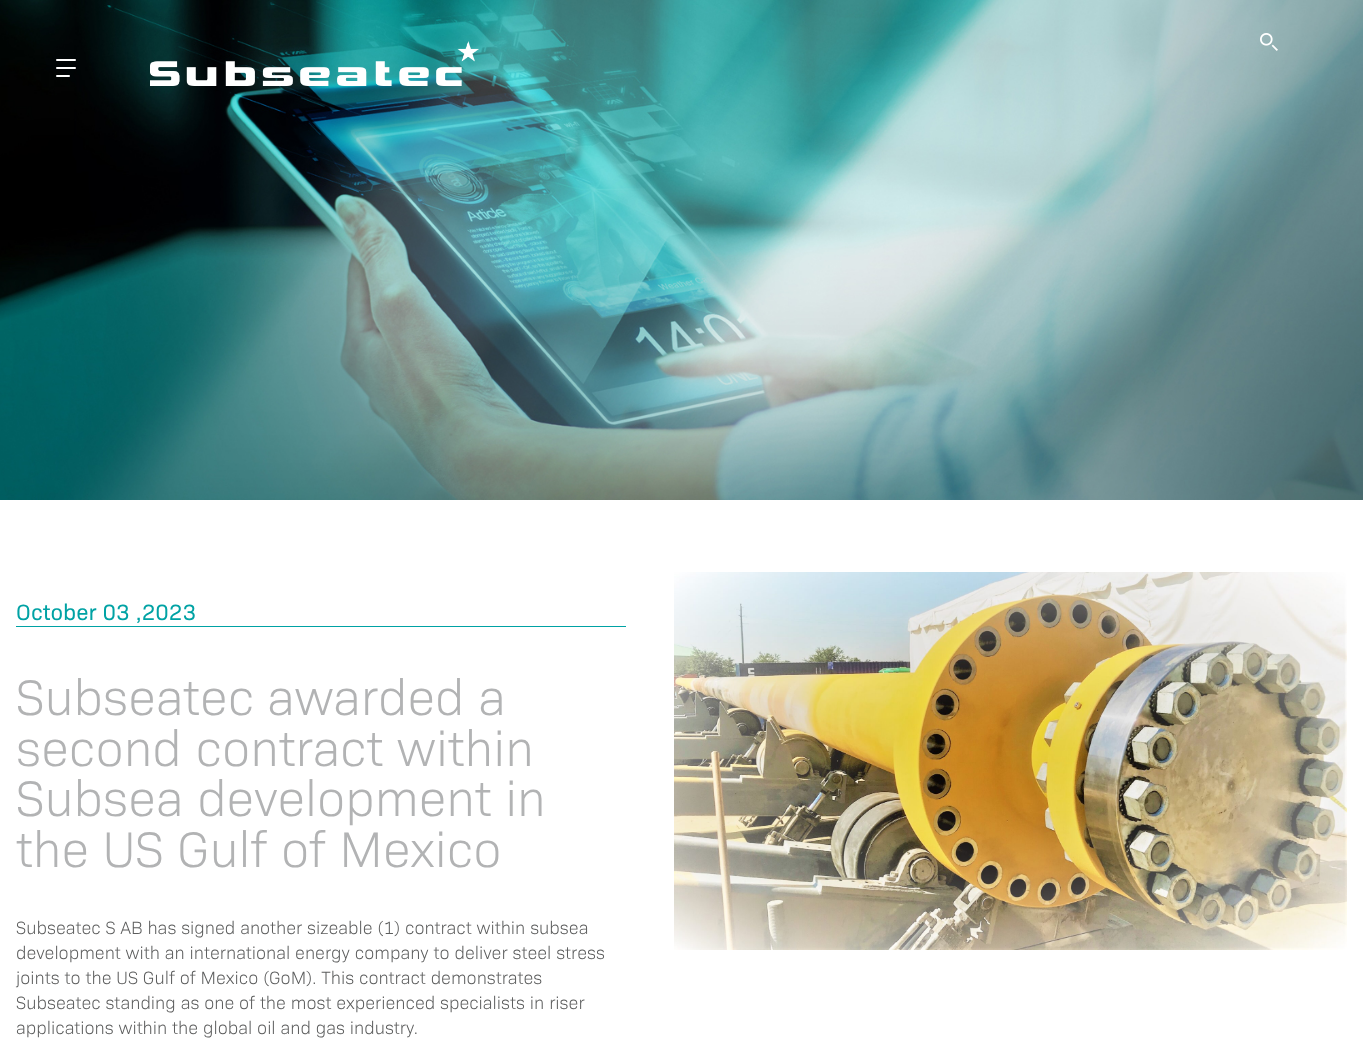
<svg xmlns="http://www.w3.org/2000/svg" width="1363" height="1041">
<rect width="100%" height="100%" fill="#fff"/>
<image x="0" y="0" width="1363" height="500" href="media/3.png"/>
<rect x="56" y="59" width="20" height="2" rx="1" fill="#fff"/>
<rect x="56" y="67" width="20" height="2" rx="1" fill="#fff"/>
<rect x="56" y="75" width="14" height="2" rx="1" fill="#fff"/>
<image x="150" y="41" width="329" height="45" href="media/1.png"/>
<image x="1260" y="33" width="18" height="18" href="media/2.png"/>
<rect x="16" y="626" width="610" height="1" fill="#00a2a4"/>
<text x="16" y="620" style="font-family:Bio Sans;font-size:22.5px;fill:#00a2a4">October 03 ,2023</text>
<text x="16" y="715" style="font-family:Bio Sans;font-size:50.6px;font-weight:300;fill:#b2b3b4">Subseatec awarded a</text>
<text x="16" y="766" style="font-family:Bio Sans;font-size:50.6px;font-weight:300;fill:#b2b3b4">second contract within</text>
<text x="16" y="816" style="font-family:Bio Sans;font-size:50.6px;font-weight:300;fill:#b2b3b4">Subsea development in</text>
<text x="16" y="867" style="font-family:Bio Sans;font-size:50.6px;font-weight:300;fill:#b2b3b4">the US Gulf of Mexico</text>
<text x="16" y="934" style="font-family:Bio Sans;font-size:18px;font-weight:300;fill:#5c5d5d">Subseatec S AB has signed another sizeable (1) contract within subsea</text>
<text x="16" y="959" style="font-family:Bio Sans;font-size:18px;font-weight:300;fill:#5c5d5d">development with an international energy company to deliver steel stress</text>
<text x="16" y="984" style="font-family:Bio Sans;font-size:18px;font-weight:300;fill:#5c5d5d">joints to the US Gulf of Mexico (GoM). This contract demonstrates</text>
<text x="16" y="1009" style="font-family:Bio Sans;font-size:18px;font-weight:300;fill:#5c5d5d">Subseatec standing as one of the most experienced specialists in riser</text>
<text x="16" y="1034" style="font-family:Bio Sans;font-size:18px;font-weight:300;fill:#5c5d5d">applications within the global oil and gas industry.</text>
<image x="674" y="572" width="673" height="378" href="media/4.png"/>
</svg>
